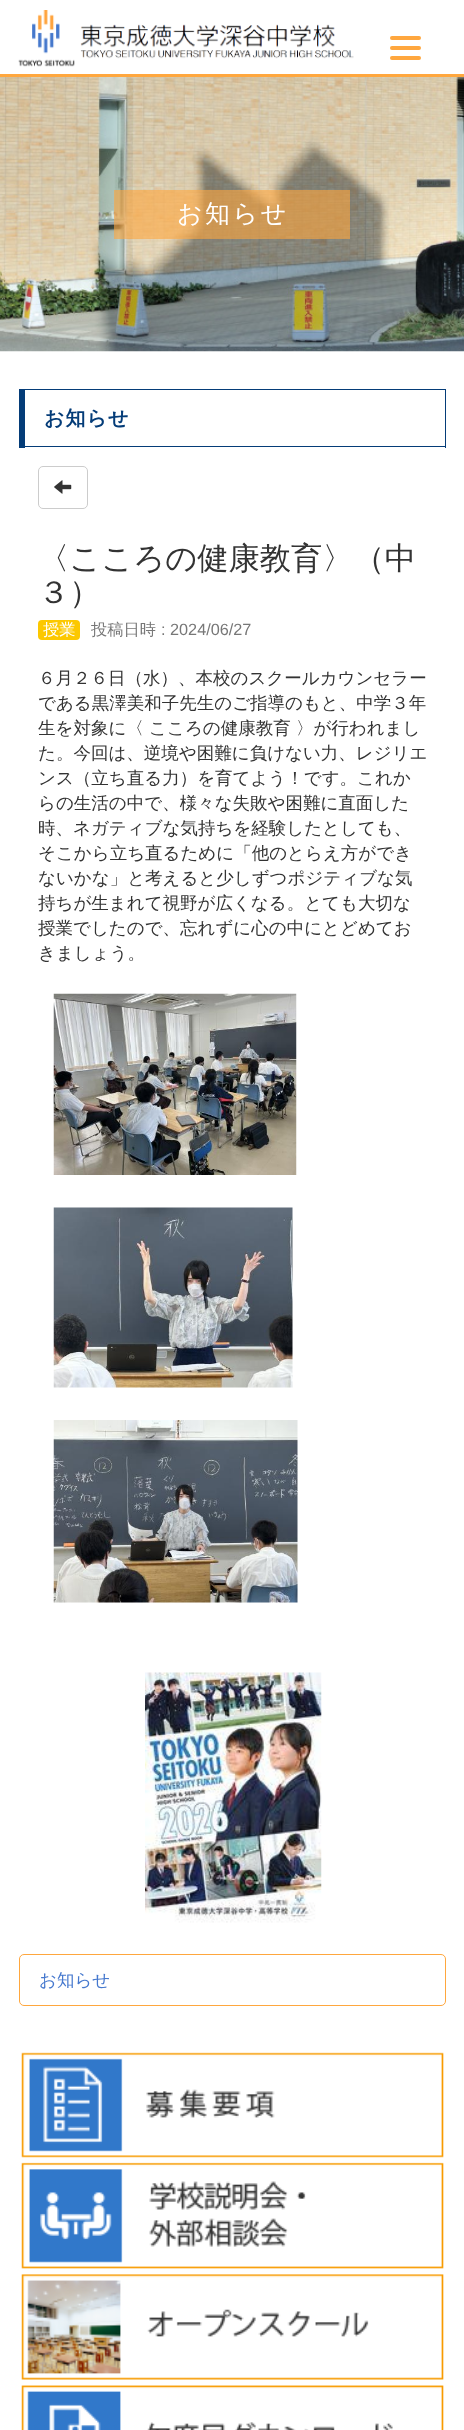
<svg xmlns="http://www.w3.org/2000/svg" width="464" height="2430">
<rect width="100%" height="100%" fill="#fff"/>
<image x="18" y="10" width="336" height="57" href="media/1.png"/>
<rect y="74" width="464" height="3" fill="#ffa73e"/>
<rect x="390" y="46" width="31" height="4" rx="2" fill="#ffa73e"/>
<rect x="390" y="36" width="31" height="4" rx="2" fill="#ffa73e"/>
<rect x="390" y="56" width="31" height="4" rx="2" fill="#ffa73e"/>
<image x="0" y="77" width="464" height="275" href="media/2.png"/>
<rect x="114" y="190" width="236" height="49" fill="#ffa73e99"/>
<text x="177" y="222" style="font-family:WenQuanYi Zen Hei;font-size:25px;font-weight:500;letter-spacing:2.5px;fill:#fff">お知らせ</text>
<rect x="19" y="389" width="427" height="1" fill="#043c78"/>
<rect x="445" y="389" width="1" height="59" fill="#043c78"/>
<rect x="19" y="446" width="427" height="1" fill="#043c78"/>
<rect x="19" y="389" width="6" height="59" fill="#043c78"/>
<text x="44" y="425" style="font-family:WenQuanYi Zen Hei;font-size:20px;font-weight:bold;letter-spacing:1px;fill:#043c78">お知らせ</text>
<rect x="38.5" y="466.5" width="49" height="42" rx="4.5" fill="none" stroke="#ccc"/>
<image x="54" y="480" width="18" height="14" href="media/3.png"/>
<text x="38" y="569" style="font-family:WenQuanYi Zen Hei;font-size:31.25px;font-weight:500;fill:#333">〈こころの健康教育〉（中</text>
<text x="38" y="603" style="font-family:WenQuanYi Zen Hei;font-size:31.25px;font-weight:500;fill:#333">３）</text>
<rect x="38" y="620" width="42" height="20" rx="4" fill="#fcc800"/>
<text x="43" y="635" style="font-family:WenQuanYi Zen Hei;font-size:16.25px;font-weight:500;fill:#fff">授業</text>
<text x="91" y="635" style="font-family:WenQuanYi Zen Hei;font-size:16.25px;font-weight:500;fill:#777">投稿日時</text>
<text x="161" y="635" style="font-family:Liberation Sans;font-size:16.25px;fill:#777">: 2024/06/27</text>
<text x="38" y="684" style="font-family:WenQuanYi Zen Hei;font-size:17.5px;font-weight:500;fill:#333">６月２６日（水）、本校のスクールカウンセラー</text>
<text x="38" y="709" style="font-family:WenQuanYi Zen Hei;font-size:17.5px;font-weight:500;fill:#333">である黒澤美和子先生のご指導のもと、中学３年</text>
<text x="38" y="734" style="font-family:WenQuanYi Zen Hei;font-size:17.5px;font-weight:500;fill:#333">生を対象に〈 こころの健康教育 〉が行われまし</text>
<text x="38" y="759" style="font-family:WenQuanYi Zen Hei;font-size:17.5px;font-weight:500;fill:#333">た。今回は、逆境や困難に負けない力、レジリエ</text>
<text x="38" y="784" style="font-family:WenQuanYi Zen Hei;font-size:17.5px;font-weight:500;fill:#333">ンス（立ち直る力）を育てよう！です。これか</text>
<text x="38" y="809" style="font-family:WenQuanYi Zen Hei;font-size:17.5px;font-weight:500;fill:#333">らの生活の中で、様々な失敗や困難に直面した</text>
<text x="38" y="834" style="font-family:WenQuanYi Zen Hei;font-size:17.5px;font-weight:500;fill:#333">時、ネガティブな気持ちを経験したとしても、</text>
<text x="38" y="859" style="font-family:WenQuanYi Zen Hei;font-size:17.5px;font-weight:500;fill:#333">そこから立ち直るために「他のとらえ方ができ</text>
<text x="38" y="884" style="font-family:WenQuanYi Zen Hei;font-size:17.5px;font-weight:500;fill:#333">ないかな」と考えると少しずつポジティブな気</text>
<text x="38" y="909" style="font-family:WenQuanYi Zen Hei;font-size:17.5px;font-weight:500;fill:#333">持ちが生まれて視野が広くなる。とても大切な</text>
<text x="38" y="934" style="font-family:WenQuanYi Zen Hei;font-size:17.5px;font-weight:500;fill:#333">授業でしたので、忘れずに心の中にとどめてお</text>
<text x="38" y="959" style="font-family:WenQuanYi Zen Hei;font-size:17.5px;font-weight:500;fill:#333">きましょう。</text>
<image x="53" y="993" width="244" height="182" href="media/4.png"/>
<image x="53" y="1207" width="240" height="181" href="media/5.png"/>
<image x="53" y="1420" width="245" height="183" href="media/6.png"/>
<image x="145" y="1672" width="177" height="251" href="media/7.png"/>
<rect x="19.5" y="1954.5" width="426" height="51" rx="4.5" fill="none" stroke="#ffa73e"/>
<text x="39" y="1986" style="font-family:WenQuanYi Zen Hei;font-size:17.5px;font-weight:500;fill:#4578ce">お知らせ</text>
<image x="21" y="2052" width="423" height="106" href="media/8.png"/>
<image x="21" y="2162" width="423" height="107" href="media/9.png"/>
<image x="21" y="2274" width="423" height="106" href="media/10.png"/>
<image x="21" y="2385" width="423" height="45" href="media/11.png"/>
</svg>
